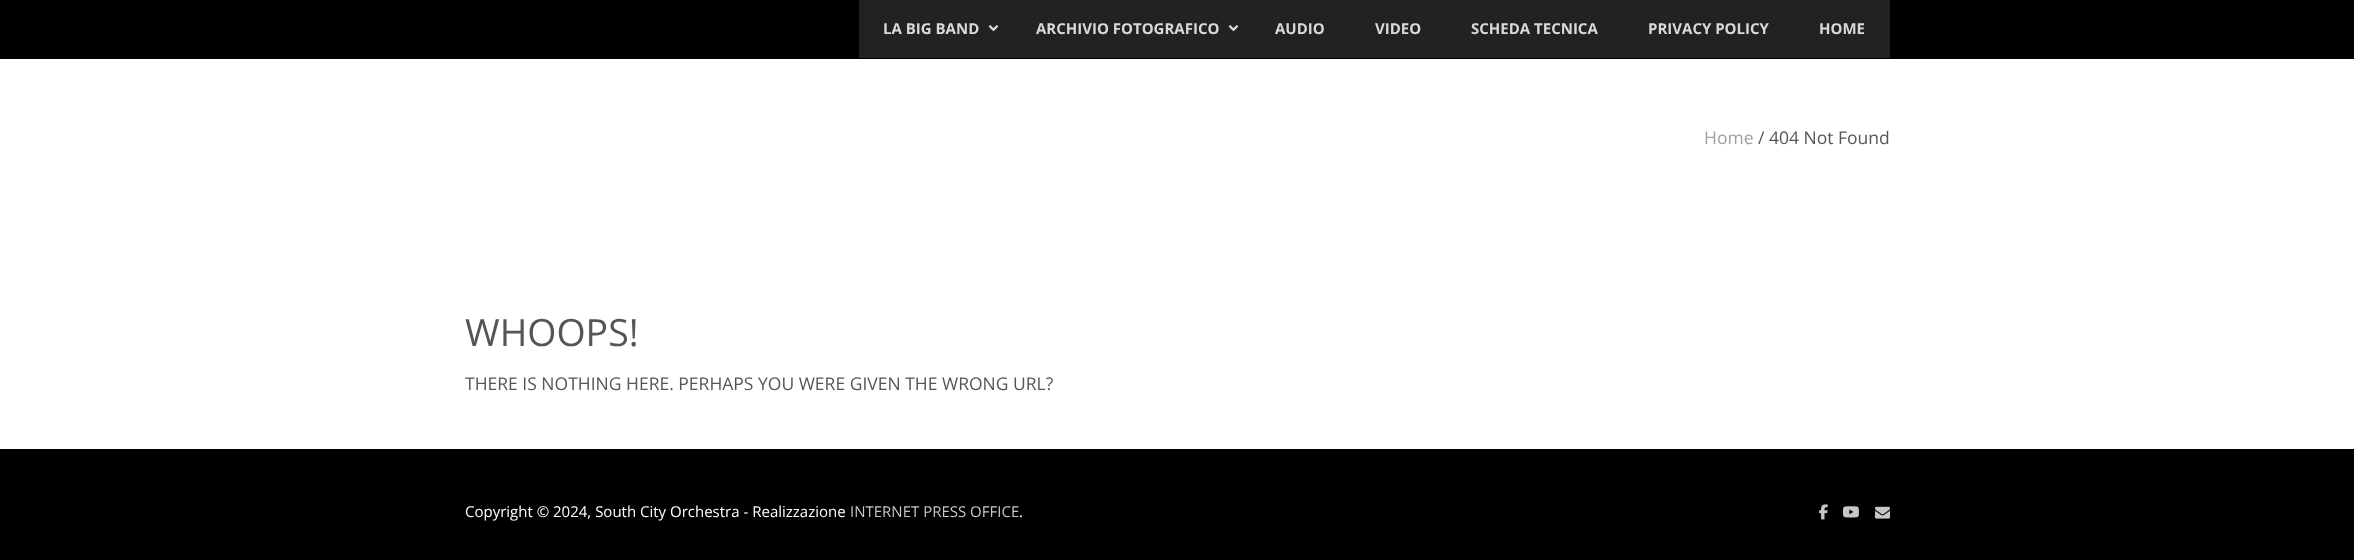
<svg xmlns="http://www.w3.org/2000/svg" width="2354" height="560">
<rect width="100%" height="100%" fill="#fff"/>
<rect width="2354" height="59" fill="#000"/>
<rect x="859" width="1031" height="58" fill="#222"/>
<text x="883" y="34" style="font-family:Open Sans;font-size:15px;font-weight:bold;fill:#d9d9d9">LA BIG BAND</text>
<image x="988" y="25" width="11" height="7" href="media/1.png"/>
<text x="1036" y="34" style="font-family:Open Sans;font-size:15px;font-weight:bold;fill:#d9d9d9">ARCHIVIO FOTOGRAFICO</text>
<image x="1228" y="25" width="11" height="7" href="media/1.png"/>
<text x="1275" y="34" style="font-family:Open Sans;font-size:15px;font-weight:bold;fill:#d9d9d9">AUDIO</text>
<text x="1375" y="34" style="font-family:Open Sans;font-size:15px;font-weight:bold;fill:#d9d9d9">VIDEO</text>
<text x="1471" y="34" style="font-family:Open Sans;font-size:15px;font-weight:bold;fill:#d9d9d9">SCHEDA TECNICA</text>
<text x="1648" y="34" style="font-family:Open Sans;font-size:15px;font-weight:bold;fill:#d9d9d9">PRIVACY POLICY</text>
<text x="1819" y="34" style="font-family:Open Sans;font-size:15px;font-weight:bold;fill:#d9d9d9">HOME</text>
<text x="1704" y="144" style="font-family:Open Sans;font-size:17.5px;fill:#a0a0a0">Home</text>
<text x="1758" y="144" style="font-family:Open Sans;font-size:17.5px;fill:#555">/ 404 Not Found</text>
<text x="465" y="346" style="font-family:Open Sans;font-size:37.5px;fill:#555">WHOOPS!</text>
<text x="465" y="390" style="font-family:Open Sans;font-size:17.5px;fill:#555">THERE IS NOTHING HERE. PERHAPS YOU WERE GIVEN THE WRONG URL?</text>
<rect y="449" width="2354" height="111" fill="#000"/>
<text x="465" y="517" style="font-family:Open Sans;font-size:15px;fill:#fff">Copyright © 2024, South City Orchestra - Realizzazione</text>
<text x="850" y="517" style="font-family:Open Sans;font-size:15px;fill:#c5c7c9">INTERNET PRESS OFFICE</text>
<text x="1019" y="517" style="font-family:Open Sans;font-size:15px;fill:#fff">.</text>
<image x="1819" y="504" width="9" height="16" href="media/2.png"/>
<image x="1842" y="506" width="17" height="12" href="media/3.png"/>
<image x="1875" y="506" width="15" height="13" href="media/4.png"/>
</svg>
